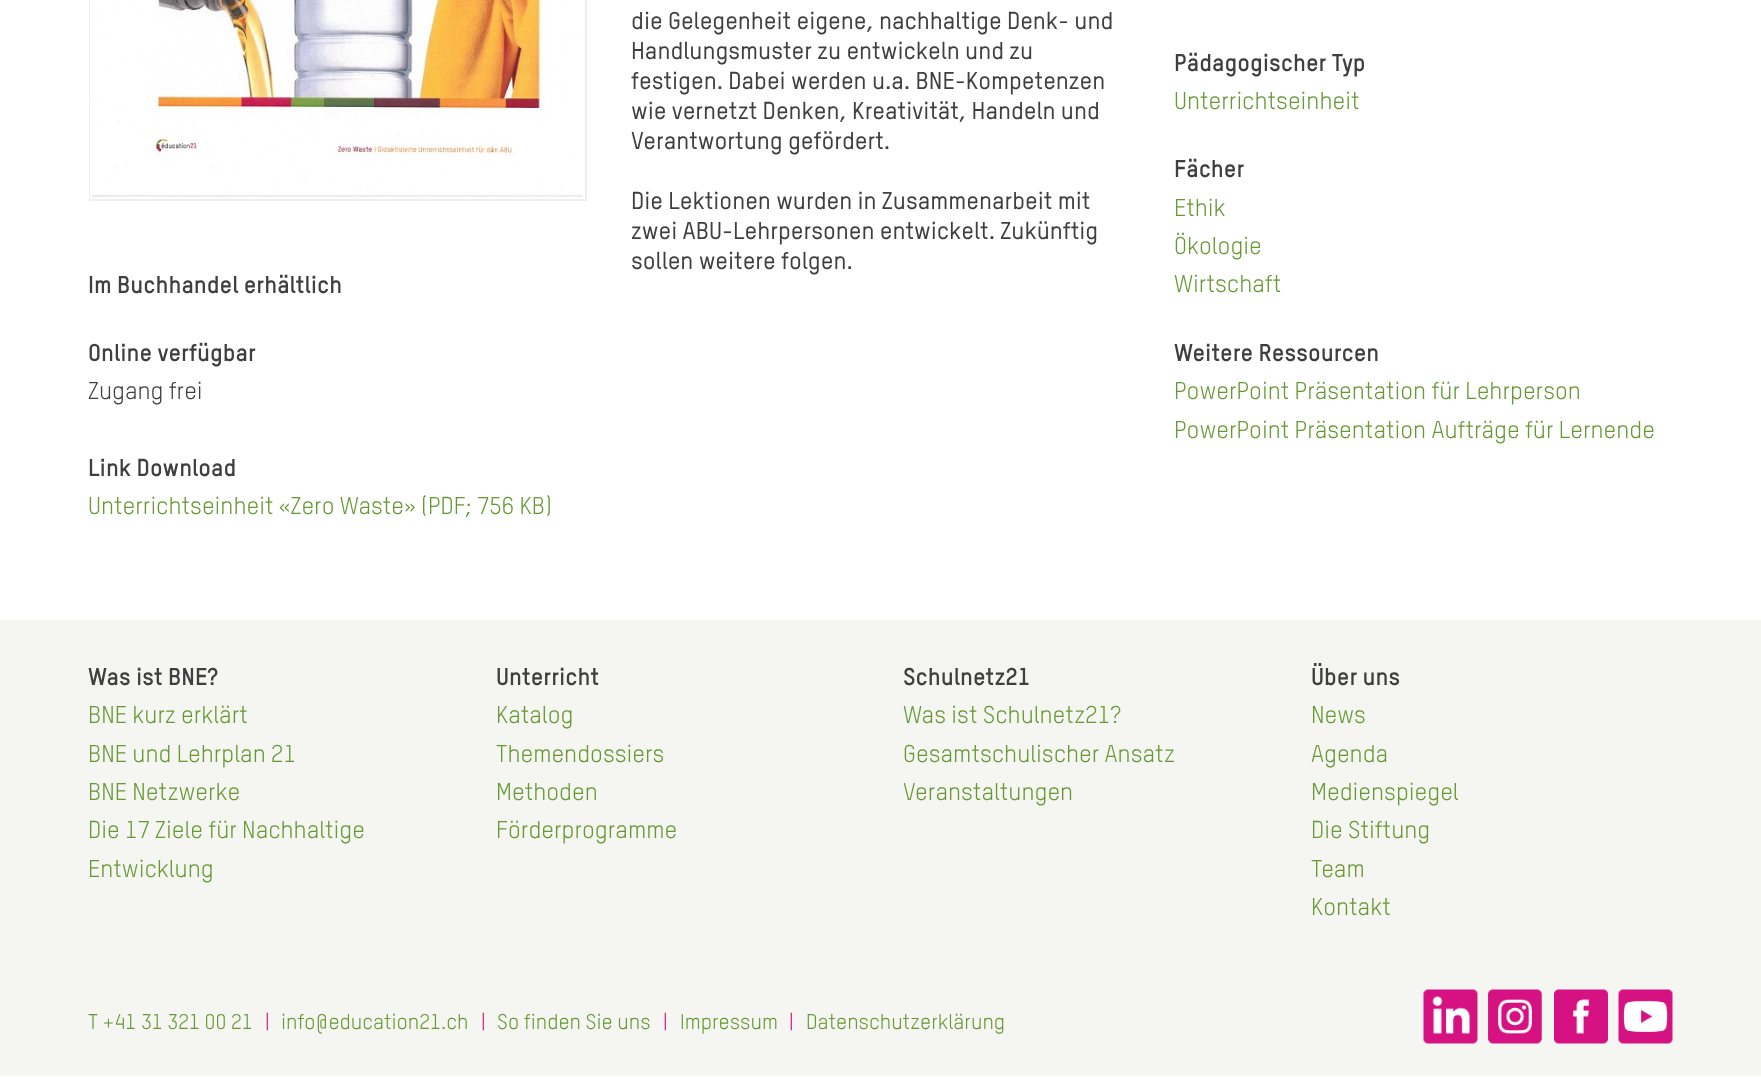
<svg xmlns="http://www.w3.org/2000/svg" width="1761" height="1077">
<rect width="100%" height="100%" fill="#fff"/>
<rect x="90" y="-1" width="496" height="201" fill="none" stroke="#eee" stroke-width="2"/>
<image x="90" y="0" width="493" height="199" href="media/1.png"/>
<text x="88" y="293" style="font-family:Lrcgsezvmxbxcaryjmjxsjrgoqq;font-size:24px;font-weight:bold;fill:#3f3f3f">Im Buchhandel erhältlich</text>
<text x="88" y="361" style="font-family:Lrcgsezvmxbxcaryjmjxsjrgoqq;font-size:24px;font-weight:bold;fill:#3f3f3f">Online verfügbar</text>
<text x="88" y="399" style="font-family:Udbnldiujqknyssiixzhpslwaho;font-size:24px;fill:#3f3f3f">Zugang frei</text>
<text x="88" y="476" style="font-family:Lrcgsezvmxbxcaryjmjxsjrgoqq;font-size:24px;font-weight:bold;fill:#3f3f3f">Link Download</text>
<text x="88" y="514" style="font-family:Udbnldiujqknyssiixzhpslwaho;font-size:24px;fill:#693">Unterrichtseinheit «Zero Waste» (PDF; 756 KB)</text>
<text x="631" y="29" style="font-family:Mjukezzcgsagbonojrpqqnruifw;font-size:24px;font-weight:500;fill:#3f3f3f">die Gelegenheit eigene, nachhaltige Denk- und</text>
<text x="631" y="59" style="font-family:Mjukezzcgsagbonojrpqqnruifw;font-size:24px;font-weight:500;fill:#3f3f3f">Handlungsmuster zu entwickeln und zu</text>
<text x="631" y="89" style="font-family:Mjukezzcgsagbonojrpqqnruifw;font-size:24px;font-weight:500;fill:#3f3f3f">festigen. Dabei werden u.a. BNE-Kompetenzen</text>
<text x="631" y="119" style="font-family:Mjukezzcgsagbonojrpqqnruifw;font-size:24px;font-weight:500;fill:#3f3f3f">wie vernetzt Denken, Kreativität, Handeln und</text>
<text x="631" y="149" style="font-family:Mjukezzcgsagbonojrpqqnruifw;font-size:24px;font-weight:500;fill:#3f3f3f">Verantwortung gefördert.</text>
<text x="631" y="209" style="font-family:Mjukezzcgsagbonojrpqqnruifw;font-size:24px;font-weight:500;fill:#3f3f3f">Die Lektionen wurden in Zusammenarbeit mit</text>
<text x="631" y="239" style="font-family:Mjukezzcgsagbonojrpqqnruifw;font-size:24px;font-weight:500;fill:#3f3f3f">zwei ABU-Lehrpersonen entwickelt. Zukünftig</text>
<text x="631" y="269" style="font-family:Mjukezzcgsagbonojrpqqnruifw;font-size:24px;font-weight:500;fill:#3f3f3f">sollen weitere folgen.</text>
<text x="1174" y="71" style="font-family:Lrcgsezvmxbxcaryjmjxsjrgoqq;font-size:24px;font-weight:bold;fill:#3f3f3f">Pädagogischer Typ</text>
<text x="1174" y="109" style="font-family:Udbnldiujqknyssiixzhpslwaho;font-size:24px;fill:#693">Unterrichtseinheit</text>
<text x="1174" y="177" style="font-family:Lrcgsezvmxbxcaryjmjxsjrgoqq;font-size:24px;font-weight:bold;fill:#3f3f3f">Fächer</text>
<text x="1174" y="216" style="font-family:Udbnldiujqknyssiixzhpslwaho;font-size:24px;fill:#693">Ethik</text>
<text x="1174" y="254" style="font-family:Udbnldiujqknyssiixzhpslwaho;font-size:24px;fill:#693">Ökologie</text>
<text x="1174" y="292" style="font-family:Udbnldiujqknyssiixzhpslwaho;font-size:24px;fill:#693">Wirtschaft</text>
<text x="1174" y="361" style="font-family:Lrcgsezvmxbxcaryjmjxsjrgoqq;font-size:24px;font-weight:bold;fill:#3f3f3f">Weitere Ressourcen</text>
<text x="1174" y="399" style="font-family:Udbnldiujqknyssiixzhpslwaho;font-size:24px;fill:#693">PowerPoint Präsentation für Lehrperson</text>
<text x="1174" y="438" style="font-family:Udbnldiujqknyssiixzhpslwaho;font-size:24px;fill:#693">PowerPoint Präsentation Aufträge für Lernende</text>
<rect y="620" width="1761" height="456" fill="#f5f5f2"/>
<text x="88" y="685" style="font-family:Lrcgsezvmxbxcaryjmjxsjrgoqq;font-size:24px;font-weight:bold;fill:#3f3f3f">Was ist BNE?</text>
<text x="88" y="723" style="font-family:Udbnldiujqknyssiixzhpslwaho;font-size:24px;fill:#693">BNE kurz erklärt</text>
<text x="88" y="762" style="font-family:Udbnldiujqknyssiixzhpslwaho;font-size:24px;fill:#693">BNE und Lehrplan 21</text>
<text x="88" y="800" style="font-family:Udbnldiujqknyssiixzhpslwaho;font-size:24px;fill:#693">BNE Netzwerke</text>
<text x="88" y="838" style="font-family:Udbnldiujqknyssiixzhpslwaho;font-size:24px;fill:#693">Die 17 Ziele für Nachhaltige</text>
<text x="88" y="877" style="font-family:Udbnldiujqknyssiixzhpslwaho;font-size:24px;fill:#693">Entwicklung</text>
<text x="496" y="685" style="font-family:Lrcgsezvmxbxcaryjmjxsjrgoqq;font-size:24px;font-weight:bold;fill:#3f3f3f">Unterricht</text>
<text x="496" y="723" style="font-family:Udbnldiujqknyssiixzhpslwaho;font-size:24px;fill:#693">Katalog</text>
<text x="496" y="762" style="font-family:Udbnldiujqknyssiixzhpslwaho;font-size:24px;fill:#693">Themendossiers</text>
<text x="496" y="800" style="font-family:Udbnldiujqknyssiixzhpslwaho;font-size:24px;fill:#693">Methoden</text>
<text x="496" y="838" style="font-family:Udbnldiujqknyssiixzhpslwaho;font-size:24px;fill:#693">Förderprogramme</text>
<text x="903" y="685" style="font-family:Lrcgsezvmxbxcaryjmjxsjrgoqq;font-size:24px;font-weight:bold;fill:#3f3f3f">Schulnetz21</text>
<text x="903" y="723" style="font-family:Udbnldiujqknyssiixzhpslwaho;font-size:24px;fill:#693">Was ist Schulnetz21?</text>
<text x="903" y="762" style="font-family:Udbnldiujqknyssiixzhpslwaho;font-size:24px;fill:#693">Gesamtschulischer Ansatz</text>
<text x="903" y="800" style="font-family:Udbnldiujqknyssiixzhpslwaho;font-size:24px;fill:#693">Veranstaltungen</text>
<text x="1311" y="685" style="font-family:Lrcgsezvmxbxcaryjmjxsjrgoqq;font-size:24px;font-weight:bold;fill:#3f3f3f">Über uns</text>
<text x="1311" y="723" style="font-family:Udbnldiujqknyssiixzhpslwaho;font-size:24px;fill:#693">News</text>
<text x="1311" y="762" style="font-family:Udbnldiujqknyssiixzhpslwaho;font-size:24px;fill:#693">Agenda</text>
<text x="1311" y="800" style="font-family:Udbnldiujqknyssiixzhpslwaho;font-size:24px;fill:#693">Medienspiegel</text>
<text x="1311" y="838" style="font-family:Udbnldiujqknyssiixzhpslwaho;font-size:24px;fill:#693">Die Stiftung</text>
<text x="1311" y="877" style="font-family:Udbnldiujqknyssiixzhpslwaho;font-size:24px;fill:#693">Team</text>
<text x="1311" y="915" style="font-family:Udbnldiujqknyssiixzhpslwaho;font-size:24px;fill:#693">Kontakt</text>
<text x="88" y="1029" style="font-family:Udbnldiujqknyssiixzhpslwaho;font-size:21px;fill:#693">T +41 31 321 00 21</text>
<text x="265" y="1029" style="font-family:Udbnldiujqknyssiixzhpslwaho;font-size:21px;fill:#c06">|</text>
<text x="281" y="1029" style="font-family:Udbnldiujqknyssiixzhpslwaho;font-size:21px;fill:#693">info@education21.ch</text>
<text x="481" y="1029" style="font-family:Udbnldiujqknyssiixzhpslwaho;font-size:21px;fill:#c06">|</text>
<text x="497" y="1029" style="font-family:Udbnldiujqknyssiixzhpslwaho;font-size:21px;fill:#693">So finden Sie uns</text>
<text x="663" y="1029" style="font-family:Udbnldiujqknyssiixzhpslwaho;font-size:21px;fill:#c06">|</text>
<text x="680" y="1029" style="font-family:Udbnldiujqknyssiixzhpslwaho;font-size:21px;fill:#693">Impressum</text>
<text x="789" y="1029" style="font-family:Udbnldiujqknyssiixzhpslwaho;font-size:21px;fill:#c06">|</text>
<text x="806" y="1029" style="font-family:Udbnldiujqknyssiixzhpslwaho;font-size:21px;fill:#693">Datenschutzerklärung</text>
<image x="1423" y="989" width="55" height="55" href="media/2.png"/>
<image x="1488" y="989" width="54" height="55" href="media/3.png"/>
<image x="1554" y="989" width="54" height="55" href="media/4.png"/>
<image x="1618" y="989" width="55" height="55" href="media/5.png"/>
</svg>
